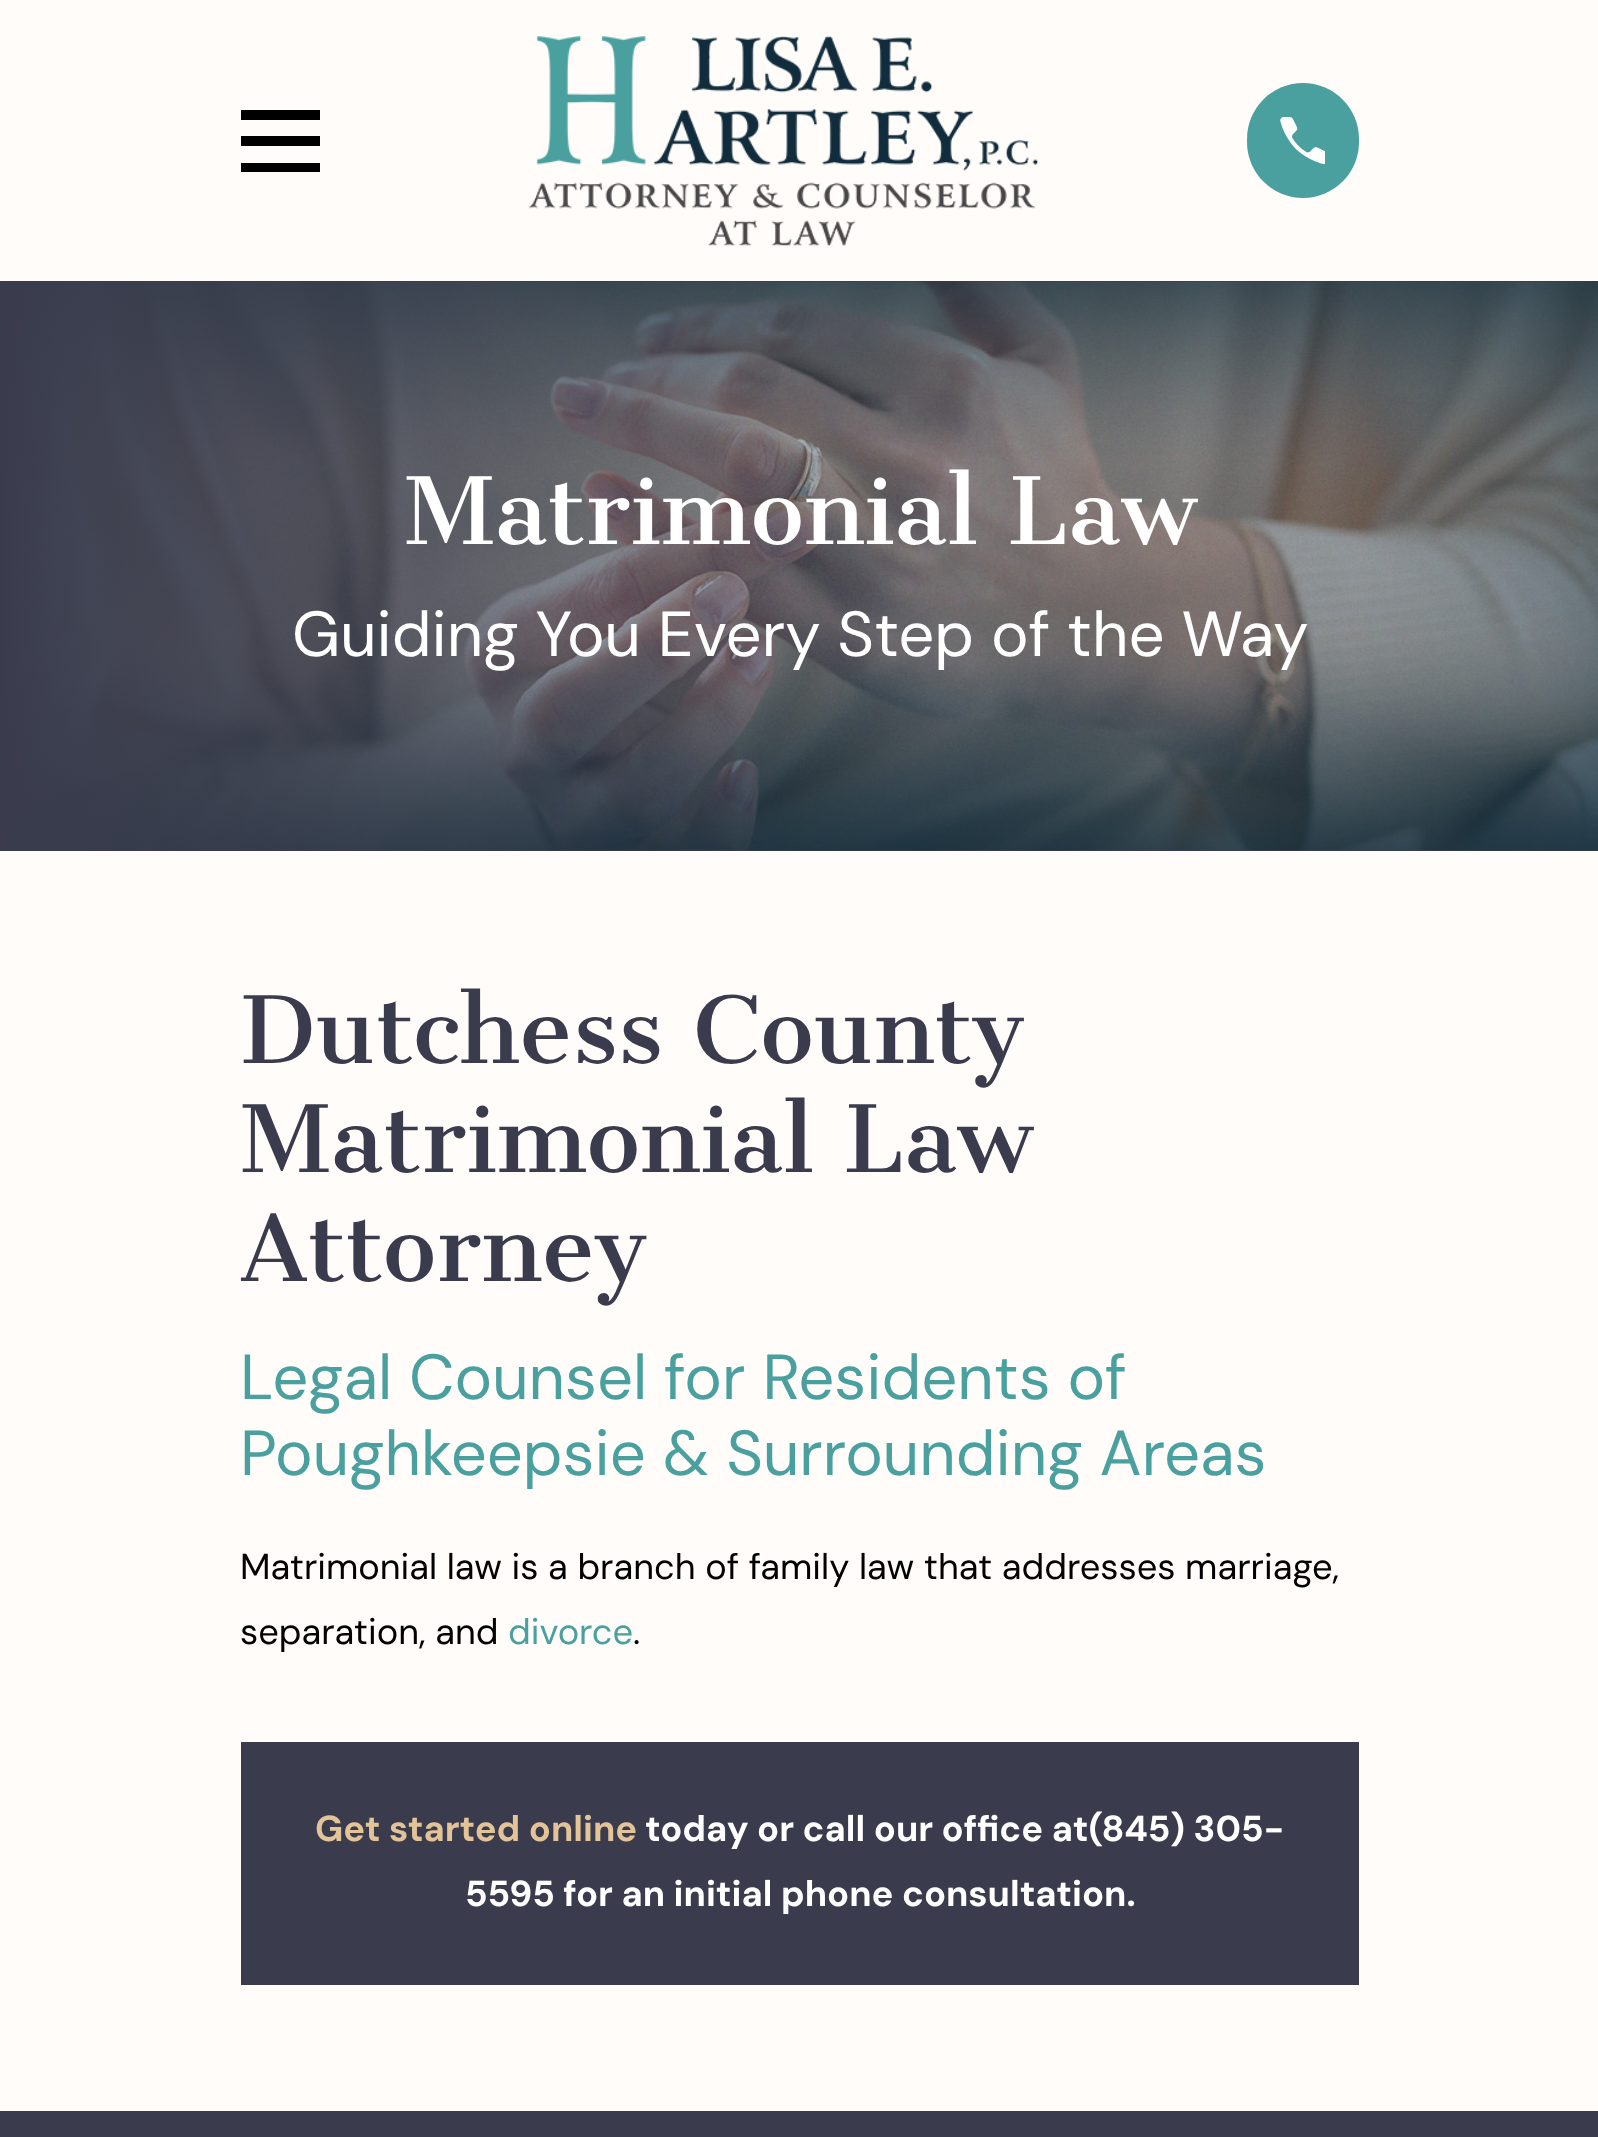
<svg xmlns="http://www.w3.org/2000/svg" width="1598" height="2137">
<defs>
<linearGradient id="g1" gradientUnits="userSpaceOnUse" x1="0" y1="566" x2="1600" y2="566"><stop offset="0" stop-color="#3a3c4d"/><stop offset="0.5" stop-color="#3a3c4d" stop-opacity="0"/><stop offset="1" stop-color="#000" stop-opacity="0"/></linearGradient>
</defs>
<rect width="100%" height="100%" fill="#3a3c4d"/>
<rect width="1598" height="281" fill="#fffcf9"/>
<path d="M241 110v10h79v-10zm0 26v10h79v-10zm0 27v9h79v-9z" fill="#000"/>
<image x="528" y="36" width="510" height="210" href="media/1.png"/>
<rect x="1247" y="83" width="112" height="115" rx="56" fill="#49a09f"/>
<image x="1280" y="117" width="45" height="47" href="media/2.png"/>
<image x="5" y="281" width="1593" height="570" href="media/3.png"/>
<rect x="5" y="281" width="775" height="570" fill="url(#g1)"/>
<text x="404" y="544" style="font-family:Cantata One;font-size:90.6px;fill:#fff">Matrimonial Law</text>
<text x="292" y="656" style="font-family:DM Sans;font-size:63.5px;fill:#fff">Guiding You Every Step of the Way</text>
<rect y="851" width="1598" height="1260" fill="#fffcf9"/>
<text x="240" y="1063" style="font-family:Cantata One;font-size:90.6px;fill:#3a3c4d">Dutchess County</text>
<text x="240" y="1172" style="font-family:Cantata One;font-size:90.6px;fill:#3a3c4d">Matrimonial Law</text>
<text x="240" y="1281" style="font-family:Cantata One;font-size:90.6px;fill:#3a3c4d">Attorney</text>
<text x="240" y="1399" style="font-family:DM Sans;font-size:63.5px;fill:#49a09f">Legal Counsel for Residents of</text>
<text x="240" y="1475" style="font-family:DM Sans;font-size:63.5px;fill:#49a09f">Poughkeepsie &amp; Surrounding Areas</text>
<text x="240" y="1579" style="font-family:DM Sans;font-size:36.25px;fill:#000">Matrimonial law is a branch of family law that addresses marriage,</text>
<text x="240" y="1644" style="font-family:DM Sans;font-size:36.25px;fill:#000">separation, and</text>
<text x="508" y="1644" style="font-family:DM Sans;font-size:36.25px;fill:#49a09f">divorce</text>
<text x="633" y="1644" style="font-family:DM Sans;font-size:36.25px;fill:#000">.</text>
<rect x="241" y="1742" width="1118" height="243" fill="#3a3c4d"/>
<text x="315" y="1841" style="font-family:DM Sans;font-size:36.25px;font-weight:bold;fill:#e3c499">Get started online</text>
<text x="645" y="1841" style="font-family:DM Sans;font-size:36.25px;font-weight:bold;fill:#fff">today or call our office at(845) 305-</text>
<text x="465" y="1906" style="font-family:DM Sans;font-size:36.25px;font-weight:bold;fill:#fff">5595 for an initial phone consultation.</text>
</svg>
